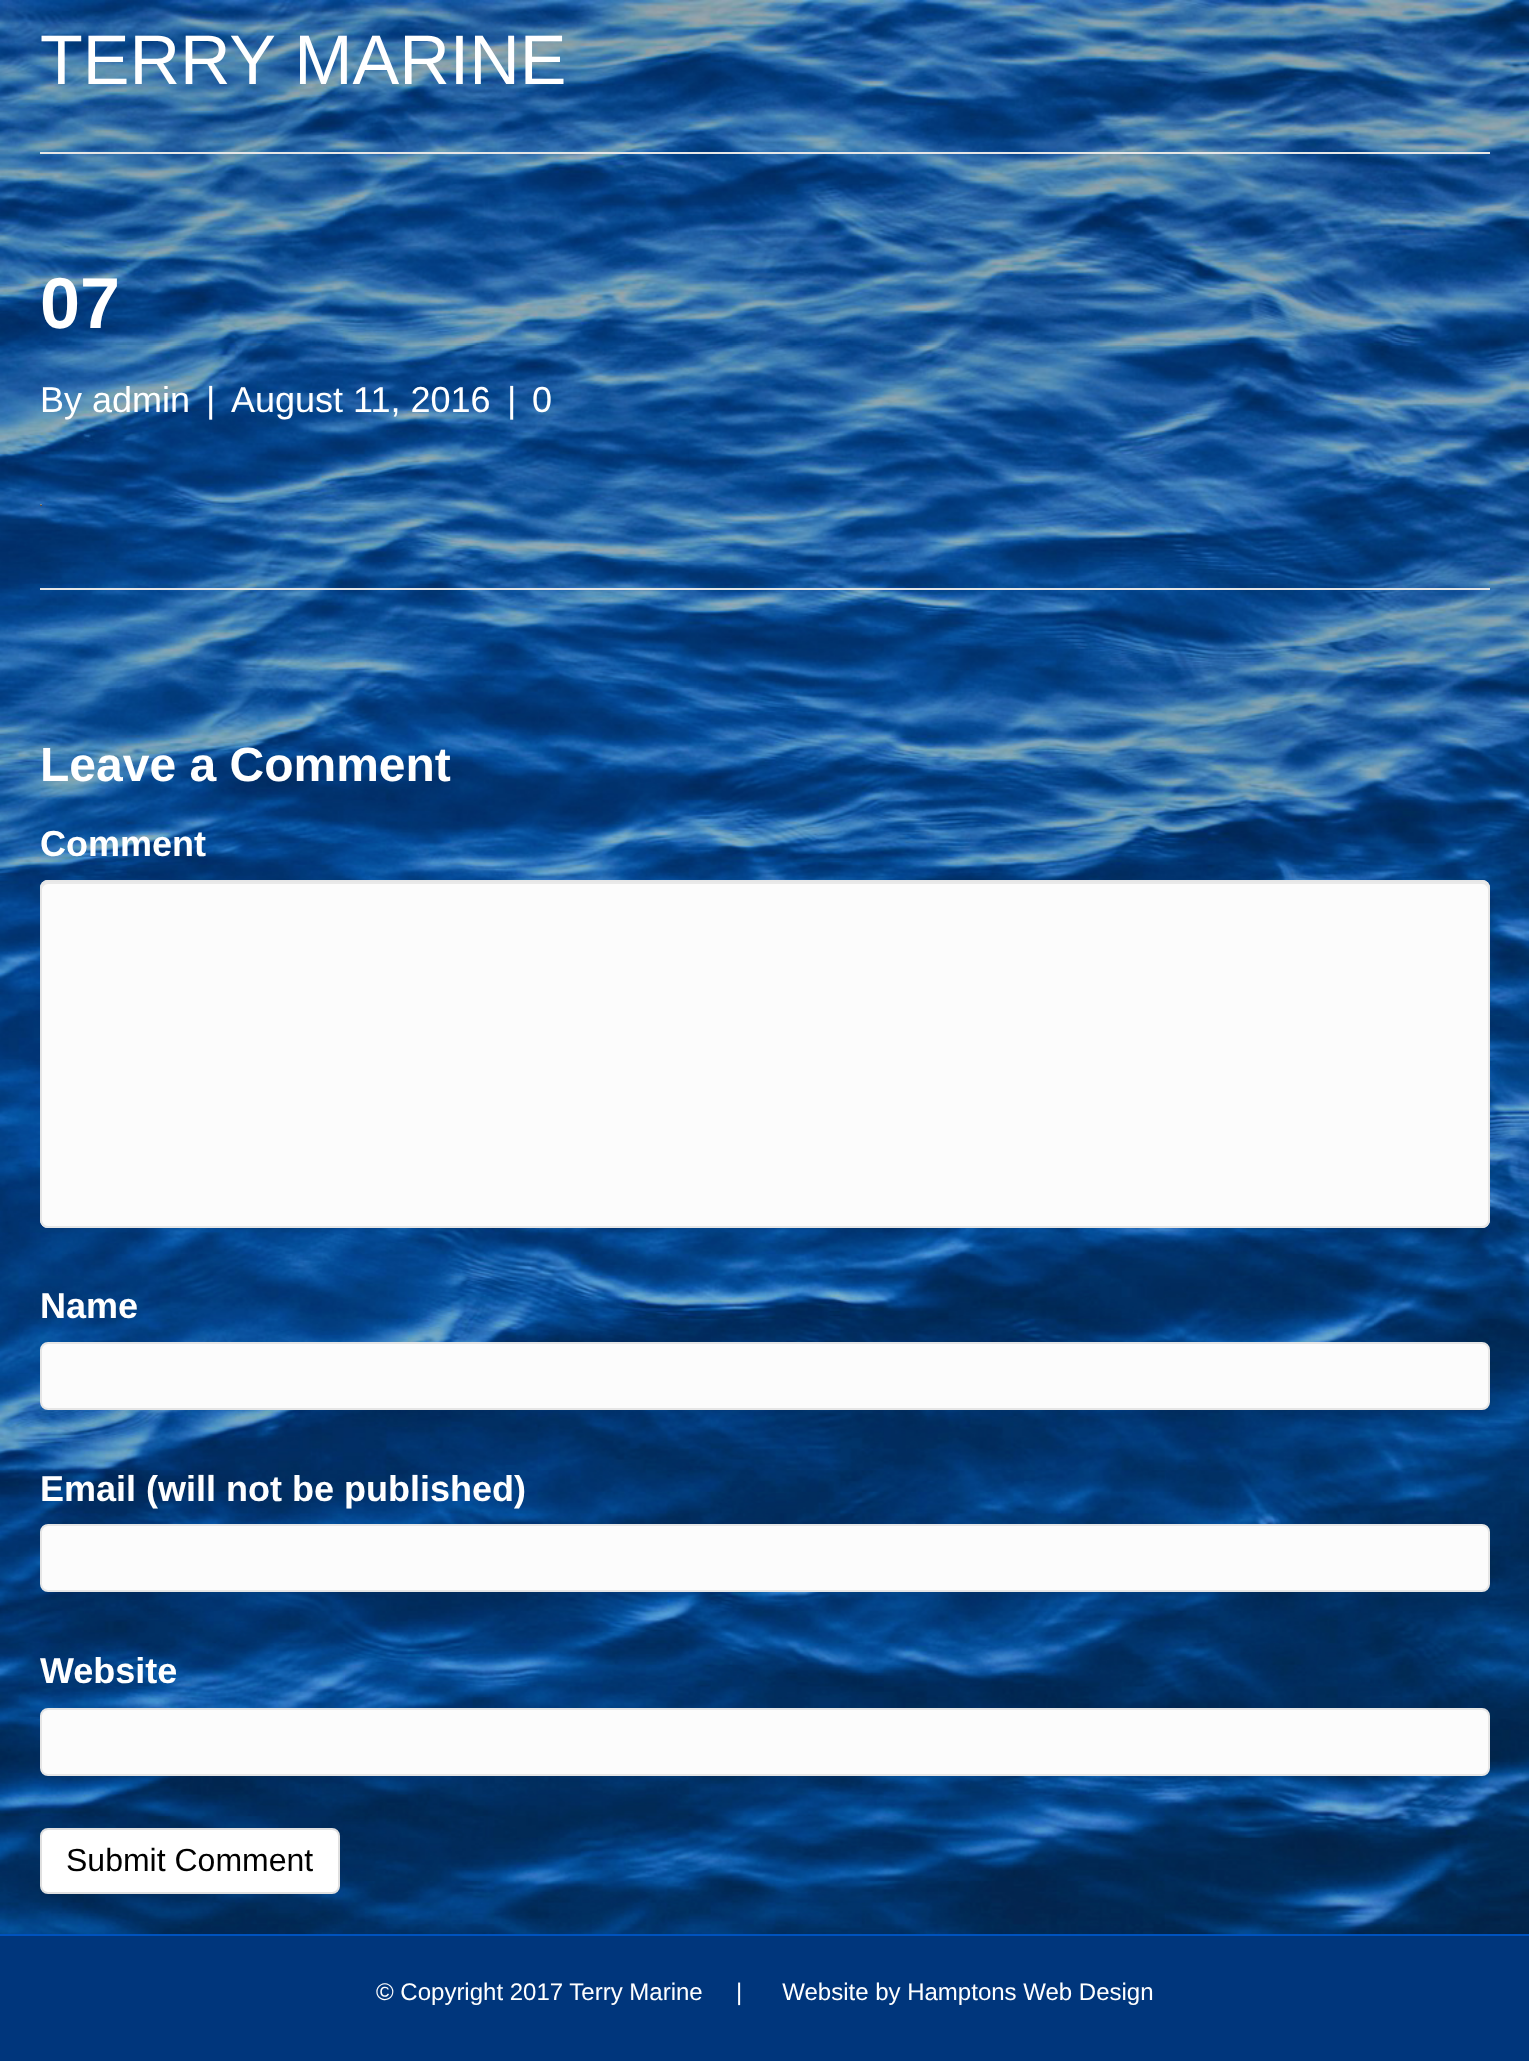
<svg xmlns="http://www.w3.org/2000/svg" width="1529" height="2061">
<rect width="100%" height="100%" fill="#fff"/>
<image x="0" y="0" width="1529" height="214" href="media/1.png"/>
<text x="40" y="84" style="font-family:Liberation Sans;font-size:70px;fill:#fff">TERRY MARINE</text>
<rect x="40" y="152" width="1450" height="2" fill="#e6e6e6"/>
<image x="0" y="214" width="1529" height="1720" href="media/2.png"/>
<text x="40" y="328" style="font-family:Liberation Sans;font-size:72px;font-weight:bold;fill:#fff">07</text>
<text x="40" y="412" style="font-family:Liberation Sans;font-size:36px;fill:#fff">By admin</text>
<text x="206" y="412" style="font-family:Liberation Sans;font-size:36px;fill:#fff">|</text>
<text x="231" y="412" style="font-family:Liberation Sans;font-size:36px;fill:#fff">August 11, 2016</text>
<text x="507" y="412" style="font-family:Liberation Sans;font-size:36px;fill:#fff">|</text>
<text x="532" y="412" style="font-family:Liberation Sans;font-size:36px;fill:#fff">0</text>
<image x="40" y="504" width="2" height="2" href="media/3.png"/>
<rect x="40" y="588" width="1450" height="2" fill="#e6e6e6"/>
<text x="40" y="781" style="font-family:Liberation Sans;font-size:48px;font-weight:bold;fill:#fff">Leave a Comment</text>
<text x="40" y="856" style="font-family:Liberation Sans;font-size:36px;font-weight:bold;fill:#fff">Comment</text>
<rect x="40" y="880" width="1450" height="348" rx="8" fill="#fcfcfc"/>
<path d="M48 884h1434c3 0 6 3 6 6c0-4-1-8-6-8h-1434c-5 0-6 4-6 8c0-3 3-6 6-6z" fill="#e9e9e9"/>
<rect x="41" y="881" width="1448" height="346" rx="7" fill="none" stroke="#e6e6e6" stroke-width="2"/>
<text x="40" y="1318" style="font-family:Liberation Sans;font-size:36px;font-weight:bold;fill:#fff">Name</text>
<rect x="41" y="1343" width="1448" height="66" rx="7" fill="#fcfcfc" stroke="#e6e6e6" stroke-width="2"/>
<text x="40" y="1501" style="font-family:Liberation Sans;font-size:36px;font-weight:bold;fill:#fff">Email (will not be published)</text>
<rect x="41" y="1525" width="1448" height="66" rx="7" fill="#fcfcfc" stroke="#e6e6e6" stroke-width="2"/>
<text x="40" y="1683" style="font-family:Liberation Sans;font-size:36px;font-weight:bold;fill:#fff">Website</text>
<rect x="41" y="1709" width="1448" height="66" rx="7" fill="#fcfcfc" stroke="#e6e6e6" stroke-width="2"/>
<rect x="41" y="1829" width="298" height="64" rx="7" fill="#fff" stroke="#e0e0e0" stroke-width="2"/>
<text x="66" y="1871" style="font-family:Liberation Sans;font-size:32px;fill:#000">Submit Comment</text>
<rect y="1936" width="1529" height="125" fill="#00367c"/>
<rect y="1934" width="1529" height="2" fill="#0053be"/>
<text x="376" y="2000" style="font-family:Liberation Sans;font-size:24px;fill:#fff">© Copyright 2017 Terry Marine</text>
<text x="736" y="2000" style="font-family:Liberation Sans;font-size:24px;fill:#fff" xml:space="preserve">|      Website by Hamptons Web Design</text>
</svg>
